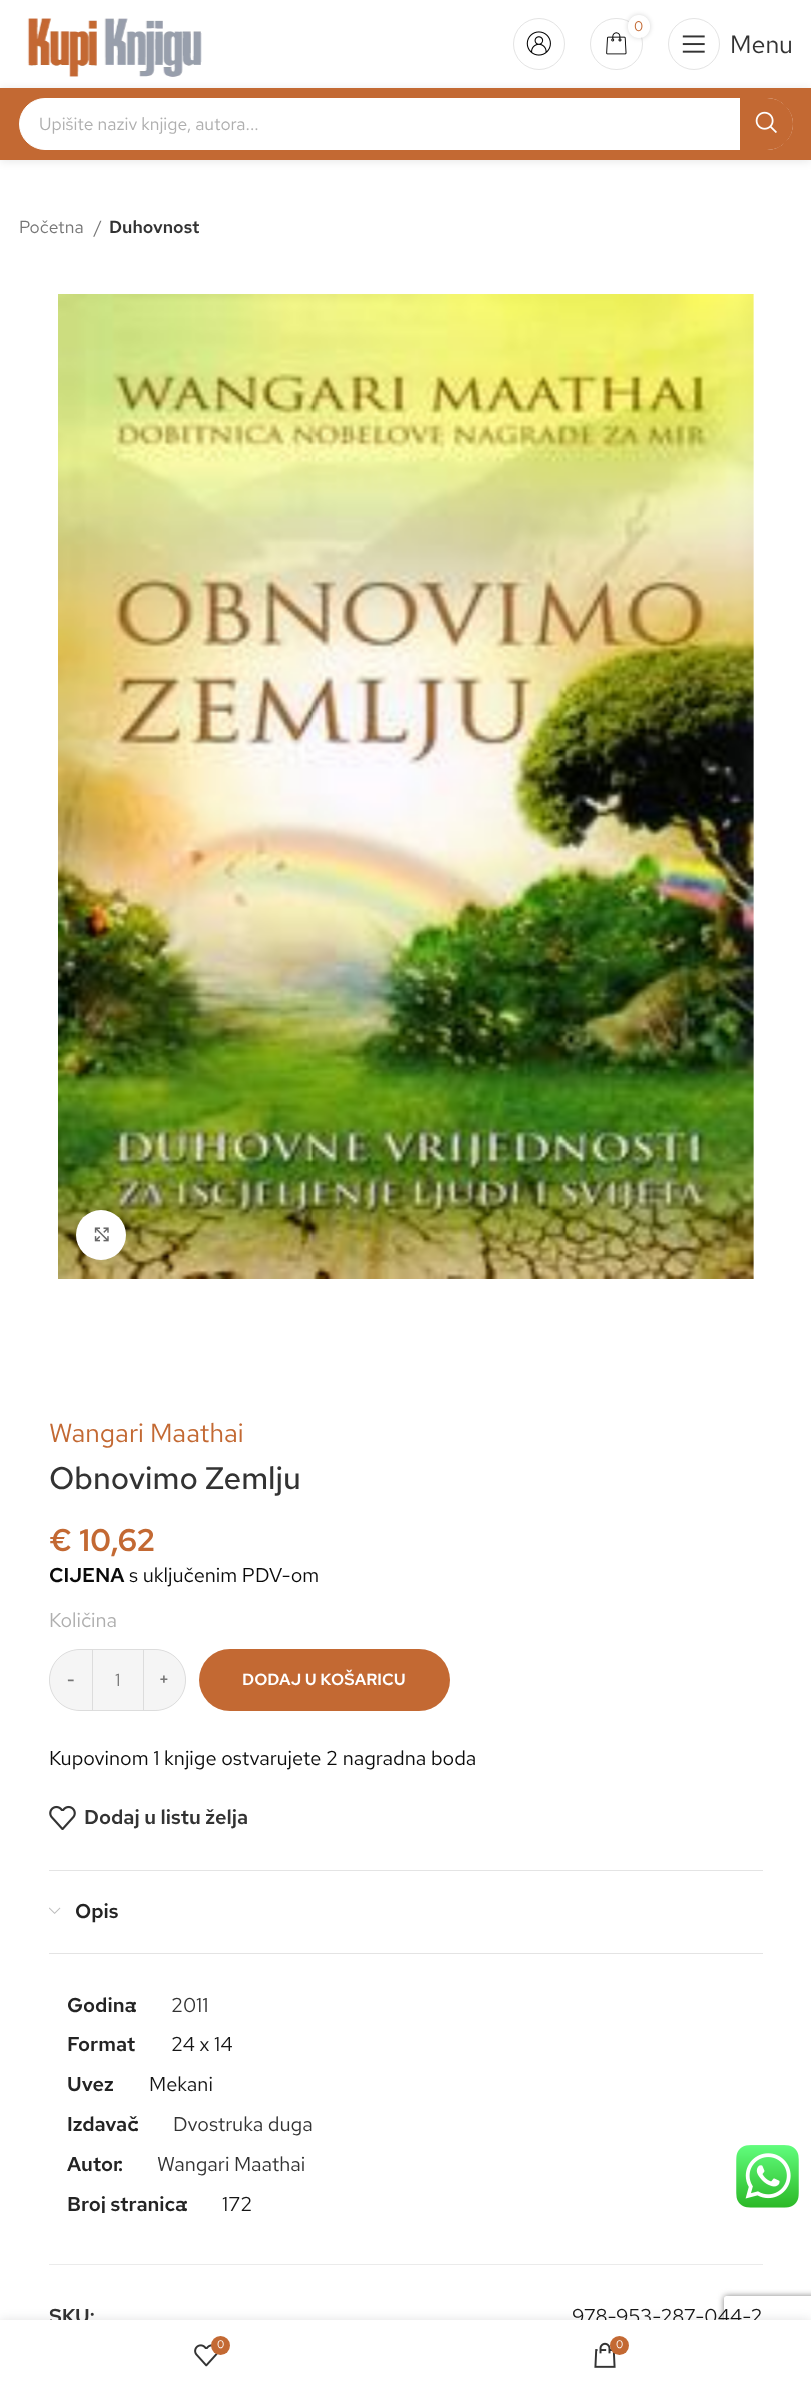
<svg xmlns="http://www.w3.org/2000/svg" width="811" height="2388">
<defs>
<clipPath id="clip1"><rect x="68" y="1991" width="676" height="222"/></clipPath>
<clipPath id="clip2"><path d="M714 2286h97v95h-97zm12.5 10h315c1.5 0 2.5 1 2.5 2.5v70c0 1.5-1 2.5-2.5 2.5h-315c-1.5 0-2.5-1-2.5-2.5v-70c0-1.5 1-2.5 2.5-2.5z" clip-rule="evenodd"/></clipPath>
</defs>
<rect width="100%" height="100%" fill="#fff"/>
<rect y="89" width="811" height="72" fill="#0000001a" filter="blur(5px)"/>
<image x="27" y="18" width="175" height="59" href="media/1.png"/>
<circle cx="539" cy="44" r="25.5" fill="none" stroke="#e4e4e4"/>
<image x="526" y="31" width="25" height="25" href="media/2.png"/>
<rect x="590.5" y="18.5" width="52" height="51" rx="25.5" fill="none" stroke="#e4e4e4"/>
<image x="606" y="32" width="21" height="23" href="media/3.png"/>
<rect x="628" y="15" width="22" height="23" rx="11" fill="#0000002b" filter="blur(2.5px)"/>
<rect x="628" y="15" width="22" height="23" rx="11" fill="#fff"/>
<text x="634" y="31" style="font-family:Red Hat Text;font-size:14px;fill:#c36933">0</text>
<circle cx="694" cy="44" r="25.5" fill="none" stroke="#e4e4e4"/>
<image x="682" y="35" width="23" height="18" href="media/4.png"/>
<text x="730" y="53" style="font-family:Red Hat Text;font-size:25px;fill:#333">Menu</text>
<rect y="88" width="811" height="72" fill="#c36933"/>
<rect x="19.5" y="98.5" width="773" height="51" rx="25.5" fill="#fff" stroke="#fff"/>
<text x="39" y="130" style="font-family:Red Hat Text;font-size:17.5px;fill:#afafaf">Upišite naziv knjige, autora...</text>
<path d="M740 98h27c14.5 0 26 11.5 26 26c0 14.5-11.5 26-26 26h-27z" fill="#c36933"/>
<image x="755" y="111" width="22" height="22" href="media/5.png"/>
<text x="19" y="233" style="font-family:Red Hat Text;font-size:17.5px;fill:#767676">Početna</text>
<text x="94" y="233" style="font-family:Red Hat Text;font-size:17.5px;fill:#767676">/</text>
<text x="109" y="233" style="font-family:Red Hat Text;font-size:17.5px;font-weight:600;fill:#333">Duhovnost</text>
<image x="58" y="294" width="696" height="985" href="media/6.png"/>
<rect x="76" y="1210" width="50" height="50" rx="25" fill="#00000014" filter="blur(3px)"/>
<circle cx="101" cy="1235" r="25" fill="#fff"/>
<image x="94" y="1227" width="15" height="15" href="media/7.png"/>
<text x="49" y="1442" style="font-family:Red Hat Text;font-size:26.25px;fill:#c36933">Wangari Maathai</text>
<text x="49" y="1489" style="font-family:Red Hat Text;font-size:31.25px;font-weight:500;fill:#333">Obnovimo Zemlju</text>
<text x="49" y="1551" style="font-family:Red Hat Text;font-size:31.25px;font-weight:600;fill:#c36933">€ 10,62</text>
<text x="49" y="1582" style="font-family:Red Hat Text;font-size:20px;font-weight:600;fill:#0a0a0a">CIJENA</text>
<text x="129" y="1582" style="font-family:Red Hat Text;font-size:20px;fill:#0a0a0a">s uključenim PDV-om</text>
<text x="49" y="1627" style="font-family:Red Hat Text;font-size:20px;fill:#afafaf">Količina</text>
<path d="M80 1649h13v62h-13c-17 0-31-14-31-31c0-17 14-31 31-31z" fill="#f5f5f5"/>
<path d="M80 1649.5h12.5v61h-12.5c-17 0-30.5-13.5-30.5-30.5c0-17 13.5-30.5 30.5-30.5z" fill="none" stroke="#0000001a"/>
<text x="67" y="1685" style="font-family:Red Hat Text;font-size:16.25px;font-weight:600;fill:#767676">-</text>
<rect x="93" y="1650" width="50" height="60" fill="#f5f5f5"/>
<rect x="93" y="1649" width="50" height="1" fill="#ddd"/>
<rect x="93" y="1710" width="50" height="1" fill="#ddd"/>
<text x="115" y="1686" style="font-family:Red Hat Text;font-size:17.5px;fill:#767676">1</text>
<path d="M143 1649h12c17 0 31 14 31 31c0 17-14 31-31 31h-12z" fill="#f5f5f5"/>
<path d="M143.5 1649.5h11.5c17 0 30.5 13.5 30.5 30.5c0 17-13.5 30.5-30.5 30.5h-11.5z" fill="none" stroke="#0000001a"/>
<text x="159" y="1685" style="font-family:Red Hat Text;font-size:16.25px;font-weight:600;fill:#767676">+</text>
<rect x="199" y="1649" width="251" height="62" rx="31" fill="#c36933"/>
<text x="242" y="1685" style="font-family:Red Hat Text;font-size:16.25px;font-weight:600;fill:#fff">DODAJ U KOŠARICU</text>
<text x="49" y="1765" style="font-family:Red Hat Text;font-size:20px;fill:#0a0a0a">Kupovinom 1 knjige ostvarujete 2 nagradna boda</text>
<image x="49" y="1805" width="27" height="25" href="media/8.png"/>
<text x="84" y="1824" style="font-family:Red Hat Text;font-size:20px;font-weight:600;fill:#333">Dodaj u listu želja</text>
<rect x="49" y="1870" width="714" height="1" fill="#e4e4e4"/>
<rect x="49" y="1953" width="714" height="1" fill="#e4e4e4"/>
<image x="49" y="1907" width="12" height="7" href="media/9.png"/>
<text x="75" y="1918" style="font-family:Red Hat Text;font-size:20px;font-weight:600;fill:#242424">Opis</text>
<text x="67" y="2012" style="font-family:Red Hat Text;font-size:20px;font-weight:600;fill:#242424">Godina</text>
<text x="132" y="2012" style="font-family:Red Hat Text;font-size:20px;font-weight:600;fill:#242424">:</text>
<text x="171" y="2012" style="font-family:Red Hat Text;font-size:20px;fill:#333">2011</text>
<text x="67" y="2051" style="font-family:Red Hat Text;font-size:20px;font-weight:600;fill:#242424">Format</text>
<text x="171" y="2051" style="font-family:Red Hat Text;font-size:20px;fill:#161616">24 x 14</text>
<text x="67" y="2091" style="font-family:Red Hat Text;font-size:20px;font-weight:600;fill:#242424">Uvez</text>
<text x="149" y="2091" style="font-family:Red Hat Text;font-size:20px;fill:#161616">Mekani</text>
<text x="67" y="2131" style="font-family:Red Hat Text;font-size:20px;font-weight:600;fill:#242424">Izdavač</text>
<text x="134" y="2131" style="font-family:Red Hat Text;font-size:20px;font-weight:600;fill:#242424">:</text>
<text x="173" y="2131" style="font-family:Red Hat Text;font-size:20px;fill:#333">Dvostruka duga</text>
<text x="67" y="2171" style="font-family:Red Hat Text;font-size:20px;font-weight:600;fill:#242424">Autor</text>
<text x="118" y="2171" style="font-family:Red Hat Text;font-size:20px;font-weight:600;fill:#242424">:</text>
<text x="157" y="2171" style="font-family:Red Hat Text;font-size:20px;fill:#333">Wangari Maathai</text>
<g clip-path="url(#clip1)">
<text x="67" y="2211" style="font-family:Red Hat Text;font-size:20px;font-weight:600;fill:#242424">Broj stranica</text>
</g>
<text x="183" y="2211" style="font-family:Red Hat Text;font-size:20px;font-weight:600;fill:#242424">:</text>
<text x="222" y="2211" style="font-family:Red Hat Text;font-size:20px;fill:#161616">172</text>
<rect x="49" y="2264" width="714" height="1" fill="#ebebeb"/>
<text x="49" y="2323" style="font-family:Red Hat Text;font-size:20px;font-weight:600;fill:#333">SKU:</text>
<g clip-path="url(#clip2)">
<rect x="724" y="2296" width="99" height="75" rx="2.5" fill="#808080" filter="blur(3px)"/>
</g>
<text x="572" y="2323" style="font-family:Red Hat Text;font-size:20px;fill:#161616">978-953-287-044-2</text>
<image x="736" y="2145" width="63" height="63" href="media/10.png"/>
<rect y="2320" width="811" height="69" fill="#0000001f" filter="blur(5.5px)"/>
<rect y="2320" width="811" height="68" fill="#fff"/>
<image x="194" y="2344" width="24" height="23" href="media/11.png"/>
<circle cx="220.5" cy="2345.5" r="9.5" fill="#c36933"/>
<text x="217" y="2348" style="font-family:Red Hat Text;font-size:11px;fill:#fff">0</text>
<image x="594" y="2342" width="22" height="26" href="media/12.png"/>
<circle cx="619.5" cy="2345.5" r="9.5" fill="#c36933"/>
<text x="616" y="2348" style="font-family:Red Hat Text;font-size:11px;fill:#fff">0</text>
</svg>
